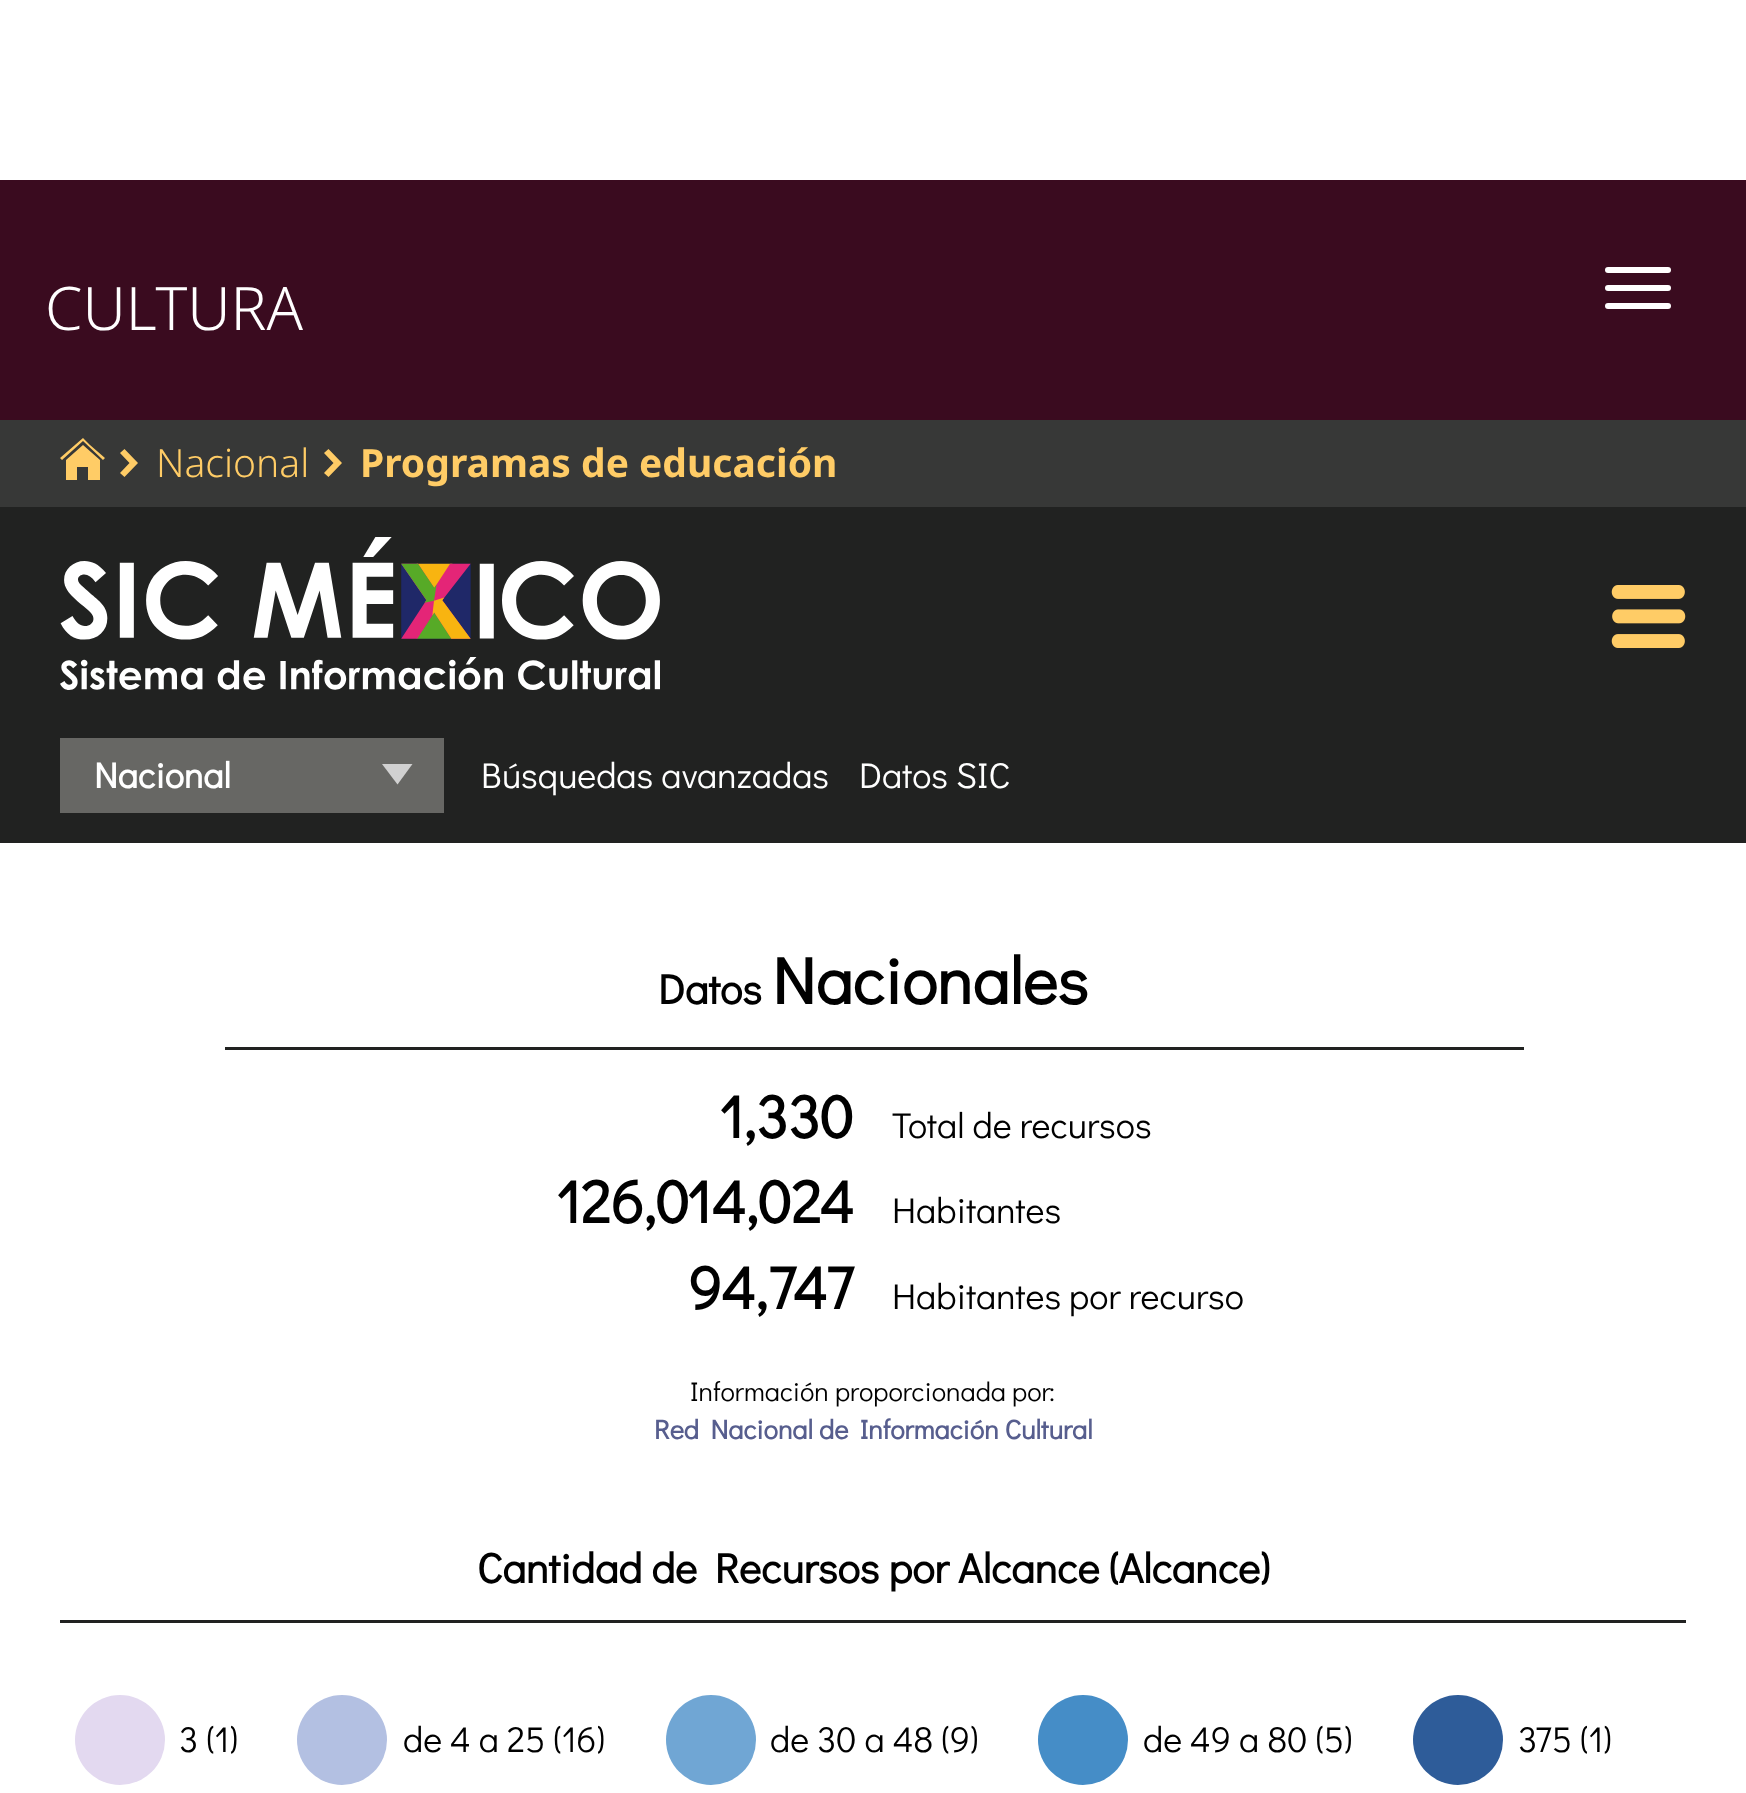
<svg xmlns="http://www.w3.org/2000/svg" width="1746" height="1793">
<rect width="100%" height="100%" fill="#fff"/>
<rect y="180" width="1746" height="240" fill="#3a0b1f"/>
<text x="45" y="330" style="font-family:Noto Sans;font-size:60px;font-weight:300;fill:#fff">CULTURA</text>
<rect x="1605" y="267" width="66" height="6" rx="3" fill="#fff"/>
<rect x="1605" y="285" width="66" height="6" rx="3" fill="#fff"/>
<rect x="1605" y="303" width="66" height="6" rx="3" fill="#fff"/>
<rect y="420" width="1746" height="87" fill="#373837"/>
<path d="M66 460v20h11v-13h11v13h12v-20l-17-15zm24-15l-7-7l-23 20l2 2l21-19l20 19l2-2z" fill="#fc6"/>
<path d="M138 463l-13.5 14l-4.5-4l9.5-10l-9.5-10l4.5-4z" fill="#fc6"/>
<text x="156" y="477" style="font-family:Noto Sans;font-size:39px;font-weight:300;fill:#fc6">Nacional</text>
<path d="M342 463l-13.5 14l-4.5-4l9.5-10l-9.5-10l4.5-4z" fill="#fc6"/>
<text x="360" y="477" style="font-family:Noto Sans;font-size:39px;font-weight:bold;fill:#fc6">Programas de educación</text>
<rect y="507" width="1746" height="336" fill="#212221"/>
<image x="60" y="537" width="600" height="153" href="media/1.png"/>
<image x="1611" y="585" width="75" height="63" href="media/2.png"/>
<rect x="60" y="738" width="384" height="75" fill="#676764"/>
<path d="M382 764l15.5 20.5l15-20.5z" fill="#d1d1d1"/>
<text x="94" y="788" style="font-family:Didact Gothic;font-size:36px;font-weight:bold;fill:#fff">Nacional</text>
<text x="481" y="788" style="font-family:Didact Gothic;font-size:36px;fill:#fff">Búsquedas avanzadas</text>
<text x="859" y="788" style="font-family:Didact Gothic;font-size:36px;fill:#fff">Datos SIC</text>
<text x="658" y="1004" style="font-family:Didact Gothic;font-size:42px;font-weight:bold;fill:#000">Datos</text>
<text x="772" y="1004" style="font-family:Didact Gothic;font-size:66px;font-weight:bold;fill:#000">Nacionales</text>
<rect x="225" y="1047" width="1299" height="3" fill="#212221"/>
<text x="719" y="1138" style="font-family:Didact Gothic;font-size:60px;font-weight:bold;fill:#000">1,330</text>
<text x="892" y="1138" style="font-family:Didact Gothic;font-size:36px;fill:#000">Total de recursos</text>
<text x="556" y="1223" style="font-family:Didact Gothic;font-size:60px;font-weight:bold;fill:#000">126,014,024</text>
<text x="892" y="1223" style="font-family:Didact Gothic;font-size:36px;fill:#000">Habitantes</text>
<text x="688" y="1309" style="font-family:Didact Gothic;font-size:60px;font-weight:bold;fill:#000">94,747</text>
<text x="892" y="1309" style="font-family:Didact Gothic;font-size:36px;fill:#000">Habitantes por recurso</text>
<text x="690" y="1401" style="font-family:Didact Gothic;font-size:27px;fill:#000">Información proporcionada por:</text>
<text x="654" y="1439" style="font-family:Didact Gothic;font-size:27px;font-weight:bold;fill:#575e8e">Red Nacional de Información Cultural</text>
<text x="477" y="1583" style="font-family:Didact Gothic;font-size:42px;font-weight:bold;fill:#000">Cantidad de Recursos por Alcance (Alcance)</text>
<rect x="60" y="1620" width="1626" height="3" fill="#212221"/>
<circle cx="120" cy="1740" r="45" fill="#e3d9f0"/>
<text x="179" y="1752" style="font-family:Didact Gothic;font-size:36px;fill:#000">3 (1)</text>
<circle cx="342" cy="1740" r="45" fill="#b3c0e2"/>
<text x="403" y="1752" style="font-family:Didact Gothic;font-size:36px;fill:#000">de 4 a 25 (16)</text>
<circle cx="711" cy="1740" r="45" fill="#70a6d4"/>
<text x="770" y="1752" style="font-family:Didact Gothic;font-size:36px;fill:#000">de 30 a 48 (9)</text>
<circle cx="1083" cy="1740" r="45" fill="#458dc7"/>
<text x="1143" y="1752" style="font-family:Didact Gothic;font-size:36px;fill:#000">de 49 a 80 (5)</text>
<circle cx="1458" cy="1740" r="45" fill="#2e5c99"/>
<text x="1518" y="1752" style="font-family:Didact Gothic;font-size:36px;fill:#000">375 (1)</text>
</svg>
